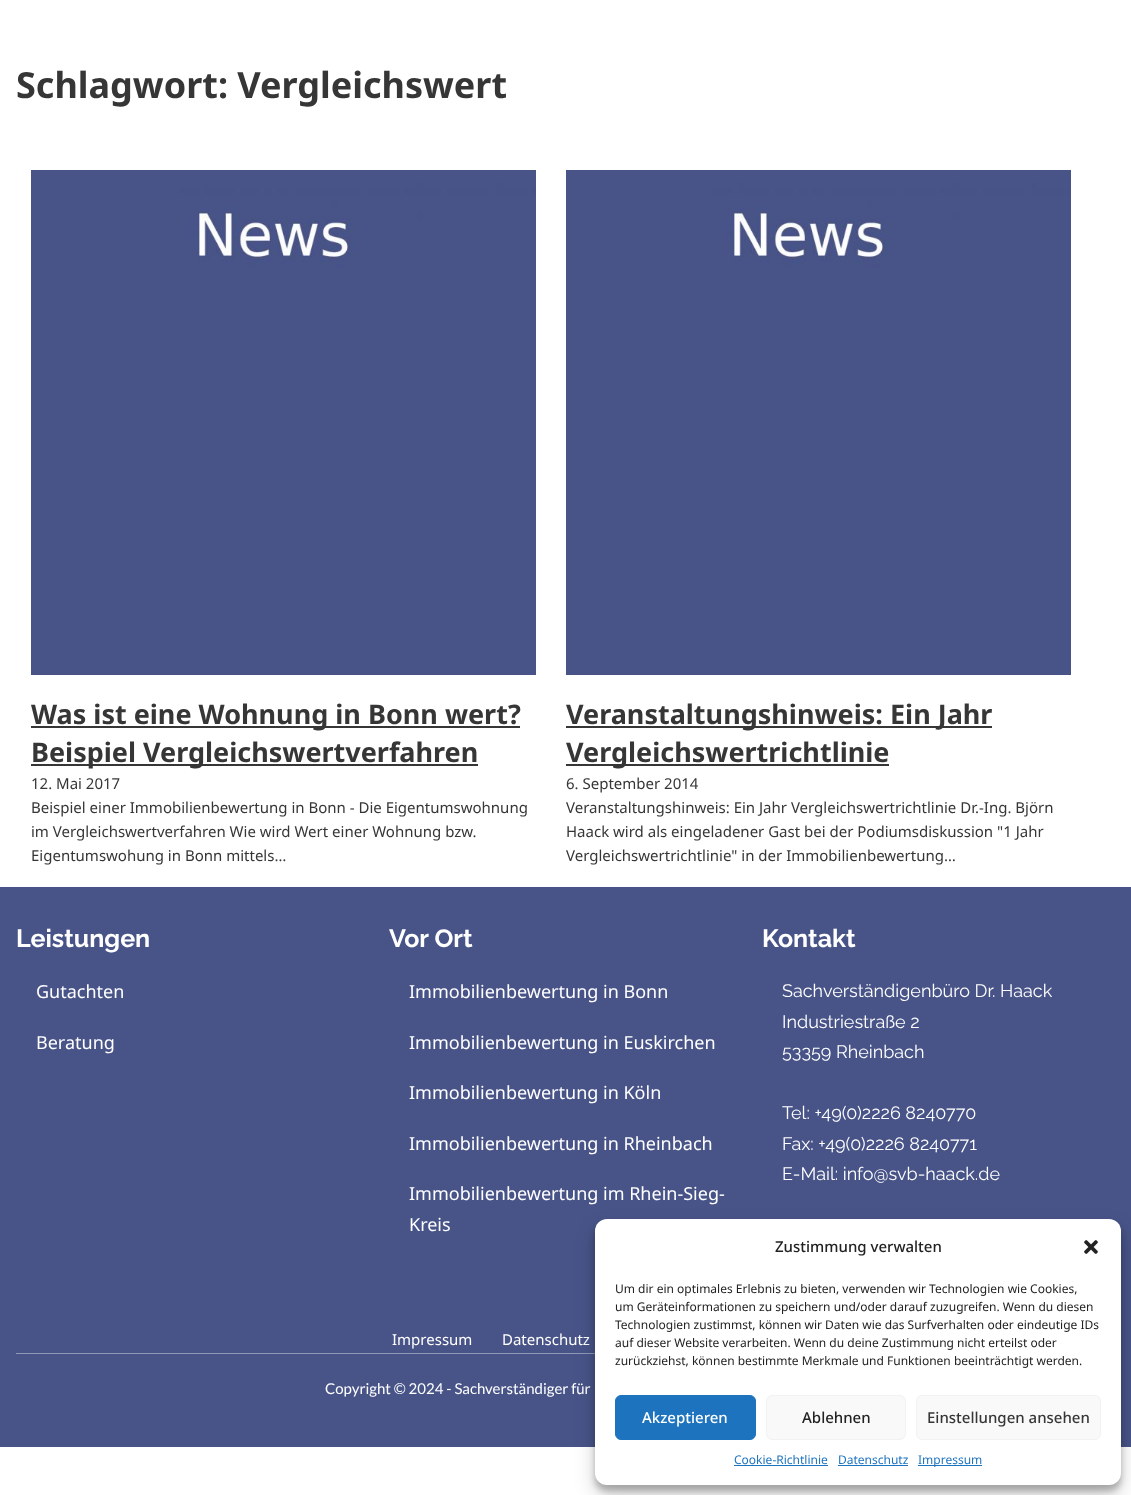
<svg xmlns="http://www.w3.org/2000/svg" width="1131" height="1495">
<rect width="100%" height="100%" fill="#fff"/>
<text x="16" y="98" style="font-family:Noto Sans;font-size:36px;font-weight:bold;fill:#363636">Schlagwort: Vergleichswert</text>
<image x="31" y="170" width="505" height="505" href="media/1.png"/>
<rect x="31" y="726" width="489" height="2" fill="#363636"/>
<text x="31" y="724" style="font-family:Noto Sans;font-size:27px;font-weight:bold;fill:#363636">Was ist eine Wohnung in Bonn wert?</text>
<rect x="31" y="764" width="447" height="2" fill="#363636"/>
<text x="31" y="762" style="font-family:Noto Sans;font-size:27px;font-weight:bold;fill:#363636">Beispiel Vergleichswertverfahren</text>
<text x="31" y="789" style="font-family:Noto Sans;font-size:15px;fill:#363636">12. Mai 2017</text>
<text x="31" y="813" style="font-family:Noto Sans;font-size:15px;fill:#363636">Beispiel einer Immobilienbewertung in Bonn - Die Eigentumswohnung</text>
<text x="31" y="837" style="font-family:Noto Sans;font-size:15px;fill:#363636">im Vergleichswertverfahren Wie wird Wert einer Wohnung bzw.</text>
<text x="31" y="861" style="font-family:Noto Sans;font-size:15px;fill:#363636">Eigentumswohung in Bonn mittels…</text>
<image x="566" y="170" width="505" height="505" href="media/1.png"/>
<rect x="566" y="726" width="426" height="2" fill="#363636"/>
<text x="566" y="724" style="font-family:Noto Sans;font-size:27px;font-weight:bold;fill:#363636">Veranstaltungshinweis: Ein Jahr</text>
<rect x="566" y="764" width="323" height="2" fill="#363636"/>
<text x="566" y="762" style="font-family:Noto Sans;font-size:27px;font-weight:bold;fill:#363636">Vergleichswertrichtlinie</text>
<text x="566" y="789" style="font-family:Noto Sans;font-size:15px;fill:#363636">6. September 2014</text>
<text x="566" y="813" style="font-family:Noto Sans;font-size:15px;fill:#363636">Veranstaltungshinweis: Ein Jahr Vergleichswertrichtlinie Dr.-Ing. Björn</text>
<text x="566" y="837" style="font-family:Noto Sans;font-size:15px;fill:#363636">Haack wird als eingeladener Gast bei der Podiumsdiskussion "1 Jahr</text>
<text x="566" y="861" style="font-family:Noto Sans;font-size:15px;fill:#363636">Vergleichswertrichtlinie" in der Immobilienbewertung…</text>
<rect y="887" width="1131" height="560" fill="#485488"/>
<text x="16" y="947" style="font-family:Raleway;font-size:25px;font-weight:100;fill:#fff">Leistungen</text>
<text x="36" y="998" style="font-family:Noto Sans;font-size:18px;fill:#fff">Gutachten</text>
<text x="36" y="1049" style="font-family:Noto Sans;font-size:18px;fill:#fff">Beratung</text>
<text x="389" y="947" style="font-family:Raleway;font-size:25px;font-weight:100;fill:#fff">Vor Ort</text>
<text x="409" y="998" style="font-family:Noto Sans;font-size:18px;fill:#fff">Immobilienbewertung in Bonn</text>
<text x="409" y="1049" style="font-family:Noto Sans;font-size:18px;fill:#fff">Immobilienbewertung in Euskirchen</text>
<text x="409" y="1099" style="font-family:Noto Sans;font-size:18px;fill:#fff">Immobilienbewertung in Köln</text>
<text x="409" y="1150" style="font-family:Noto Sans;font-size:18px;fill:#fff">Immobilienbewertung in Rheinbach</text>
<text x="409" y="1200" style="font-family:Noto Sans;font-size:18px;fill:#fff">Immobilienbewertung im Rhein-Sieg-</text>
<text x="409" y="1231" style="font-family:Noto Sans;font-size:18px;fill:#fff">Kreis</text>
<text x="762" y="947" style="font-family:Raleway;font-size:25px;font-weight:100;fill:#fff">Kontakt</text>
<text x="782" y="997" style="font-family:'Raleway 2';font-size:18px;font-weight:100;fill:#fff">Sachverständigenbüro Dr. Haack</text>
<text x="782" y="1028" style="font-family:'Raleway 2';font-size:18px;font-weight:100;fill:#fff">Industriestraße 2</text>
<text x="782" y="1058" style="font-family:'Raleway 2';font-size:18px;font-weight:100;fill:#fff">53359 Rheinbach</text>
<text x="782" y="1119" style="font-family:'Raleway 2';font-size:18px;font-weight:100;fill:#fff">Tel: +49(0)2226 8240770</text>
<text x="782" y="1150" style="font-family:'Raleway 2';font-size:18px;font-weight:100;fill:#fff">Fax: +49(0)2226 8240771</text>
<text x="782" y="1180" style="font-family:'Raleway 2';font-size:18px;font-weight:100;fill:#fff">E-Mail: info@svb-haack.de</text>
<text x="392" y="1345" style="font-family:Noto Sans;font-size:15px;fill:#fff">Impressum</text>
<text x="502" y="1345" style="font-family:Noto Sans;font-size:15px;fill:#fff">Datenschutz</text>
<rect x="16" y="1353" width="579" height="1" fill="#9198b8"/>
<text x="325" y="1394" style="font-family:Lato;font-size:15px;fill:#fff">Copyright © 2024 - Sachverständiger für</text>
<rect x="595" y="1225" width="526" height="266" rx="12" fill="#0000003b" filter="blur(3px)"/>
<rect x="595" y="1229" width="526" height="266" rx="12" fill="#00000030" filter="blur(10px)"/>
<rect x="595" y="1219" width="526" height="266" rx="12" fill="#fff"/>
<text x="775" y="1252" style="font-family:Noto Sans;font-size:15px;font-weight:500;fill:#222">Zustimmung verwalten</text>
<image x="1084" y="1240" width="14" height="14" href="media/2.png"/>
<text x="615" y="1293" style="font-family:Noto Sans;font-size:12px;fill:#222">Um dir ein optimales Erlebnis zu bieten, verwenden wir Technologien wie Cookies,</text>
<text x="615" y="1311" style="font-family:Noto Sans;font-size:12px;fill:#222">um Geräteinformationen zu speichern und/oder darauf zuzugreifen. Wenn du diesen</text>
<text x="615" y="1329" style="font-family:Noto Sans;font-size:12px;fill:#222">Technologien zustimmst, können wir Daten wie das Surfverhalten oder eindeutige IDs</text>
<text x="615" y="1347" style="font-family:Noto Sans;font-size:12px;fill:#222">auf dieser Website verarbeiten. Wenn du deine Zustimmung nicht erteilst oder</text>
<text x="615" y="1365" style="font-family:Noto Sans;font-size:12px;fill:#222">zurückziehst, können bestimmte Merkmale und Funktionen beeinträchtigt werden.</text>
<rect x="615.5" y="1395.5" width="140" height="44" rx="5.5" fill="#1e73be" stroke="#1e73be"/>
<text x="642" y="1423" style="font-family:Noto Sans;font-size:15px;font-weight:500;fill:#fff">Akzeptieren</text>
<rect x="766.5" y="1395.5" width="139" height="44" rx="5.5" fill="#f9f9f9" stroke="#f2f2f2"/>
<text x="802" y="1423" style="font-family:Noto Sans;font-size:15px;font-weight:500;fill:#222">Ablehnen</text>
<rect x="916.5" y="1395.5" width="184" height="44" rx="5.5" fill="#f9f9f9" stroke="#f2f2f2"/>
<text x="927" y="1423" style="font-family:Noto Sans;font-size:15px;font-weight:500;fill:#363636">Einstellungen ansehen</text>
<text x="734" y="1464" style="font-family:Noto Sans;font-size:12px;fill:#1e73be">Cookie-Richtlinie</text>
<rect x="734" y="1465" width="94" height="1" fill="#1e73be"/>
<text x="838" y="1464" style="font-family:Noto Sans;font-size:12px;fill:#1e73be">Datenschutz</text>
<rect x="838" y="1465" width="70" height="1" fill="#1e73be"/>
<rect x="918" y="1465" width="64" height="1" fill="#1e73be"/>
<text x="918" y="1464" style="font-family:Noto Sans;font-size:12px;fill:#1e73be">Impressum</text>
</svg>
